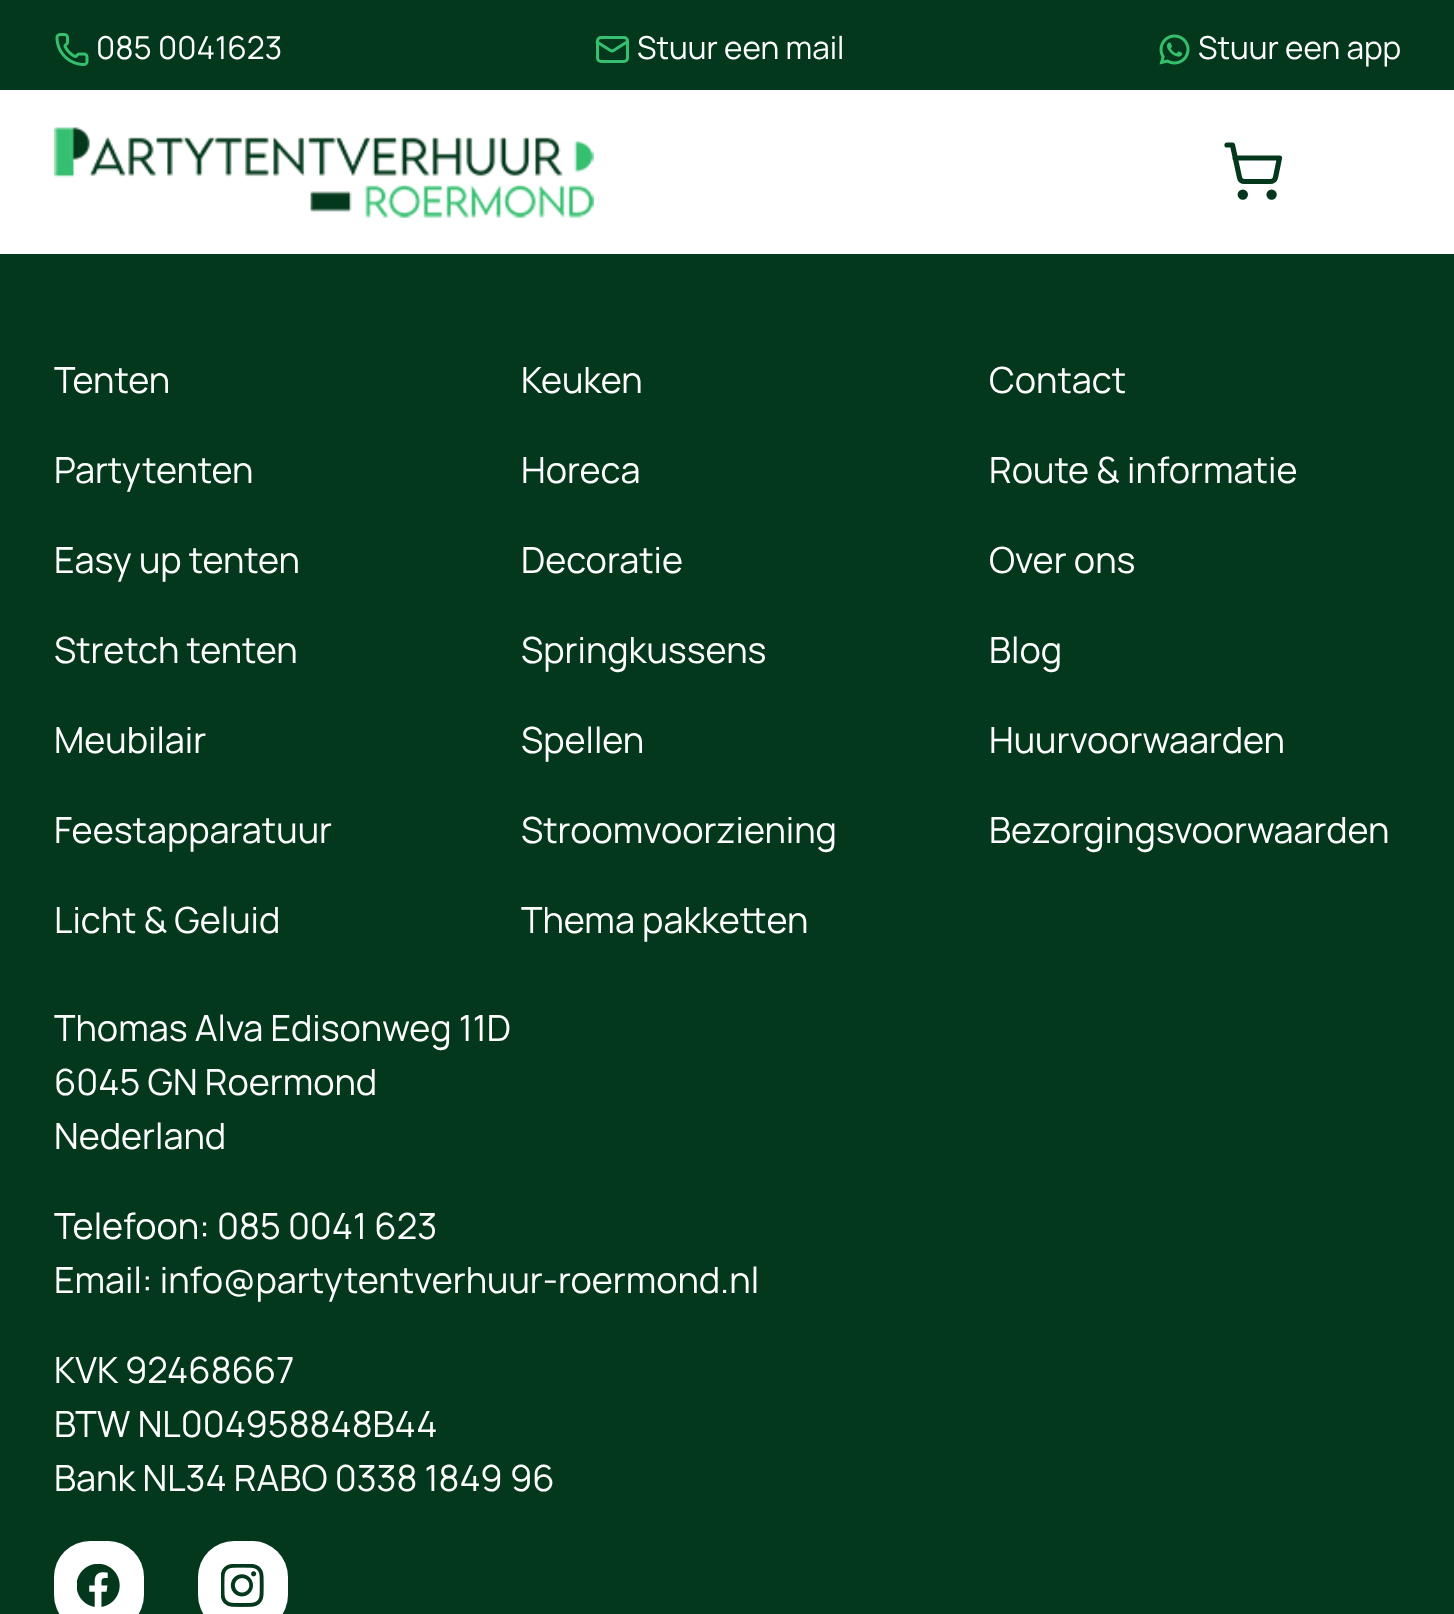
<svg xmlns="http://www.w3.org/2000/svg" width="1454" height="1614">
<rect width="100%" height="100%" fill="#04381c"/>
<rect y="90" width="1454" height="164" fill="#fff"/>
<image x="55" y="33" width="34" height="33" href="media/1.png"/>
<text x="96" y="59" style="font-family:Manrope;font-size:31.5px;fill:#fff">085 0041623</text>
<text x="637" y="59" style="font-family:Manrope;font-size:31.5px;fill:#fff">Stuur een mail</text>
<path d="M627 42l-13.5 8.5c-1 .5-2 .5-3 0l-13.5-8.5" fill="none" stroke="#36bf6f" stroke-width="3" stroke-linecap="round" stroke-linejoin="round"/>
<rect x="597.5" y="37.5" width="30" height="24" rx="3.5" fill="none" stroke="#36bf6f" stroke-width="3"/>
<image x="1159" y="34" width="31" height="31" href="media/2.png"/>
<text x="1198" y="59" style="font-family:Manrope;font-size:31.5px;fill:#fff">Stuur een app</text>
<image x="54" y="127" width="540" height="91" href="media/3.png"/>
<circle cx="1242.8" cy="194.6" r="2.6" fill="none" stroke="#04381c" stroke-width="5.2"/>
<circle cx="1271.6" cy="194.6" r="2.6" fill="none" stroke="#04381c" stroke-width="5.2"/>
<path d="M1227 145h5.5l7 32.5c.5 2.5 2.5 4 5 4h26c2 0 4.5-1.5 5-4l4-19.5h-44.5" fill="none" stroke="#04381c" stroke-width="5.2" stroke-linecap="round" stroke-linejoin="round"/>
<text x="54" y="393" style="font-family:Manrope;font-size:36px;fill:#fff">Tenten</text>
<text x="54" y="483" style="font-family:Manrope;font-size:36px;fill:#fff">Partytenten</text>
<text x="54" y="573" style="font-family:Manrope;font-size:36px;fill:#fff">Easy up tenten</text>
<text x="54" y="663" style="font-family:Manrope;font-size:36px;fill:#fff">Stretch tenten</text>
<text x="54" y="753" style="font-family:Manrope;font-size:36px;fill:#fff">Meubilair</text>
<text x="54" y="843" style="font-family:Manrope;font-size:36px;fill:#fff">Feestapparatuur</text>
<text x="54" y="933" style="font-family:Manrope;font-size:36px;fill:#fff">Licht &amp; Geluid</text>
<text x="521" y="393" style="font-family:Manrope;font-size:36px;fill:#fff">Keuken</text>
<text x="521" y="483" style="font-family:Manrope;font-size:36px;fill:#fff">Horeca</text>
<text x="521" y="573" style="font-family:Manrope;font-size:36px;fill:#fff">Decoratie</text>
<text x="521" y="663" style="font-family:Manrope;font-size:36px;fill:#fff">Springkussens</text>
<text x="521" y="753" style="font-family:Manrope;font-size:36px;fill:#fff">Spellen</text>
<text x="521" y="843" style="font-family:Manrope;font-size:36px;fill:#fff">Stroomvoorziening</text>
<text x="521" y="933" style="font-family:Manrope;font-size:36px;fill:#fff">Thema pakketten</text>
<text x="989" y="393" style="font-family:Manrope;font-size:36px;fill:#fff">Contact</text>
<text x="989" y="483" style="font-family:Manrope;font-size:36px;fill:#fff">Route &amp; informatie</text>
<text x="989" y="573" style="font-family:Manrope;font-size:36px;fill:#fff">Over ons</text>
<text x="989" y="663" style="font-family:Manrope;font-size:36px;fill:#fff">Blog</text>
<text x="989" y="753" style="font-family:Manrope;font-size:36px;fill:#fff">Huurvoorwaarden</text>
<text x="989" y="843" style="font-family:Manrope;font-size:36px;fill:#fff">Bezorgingsvoorwaarden</text>
<text x="54" y="1041" style="font-family:Manrope;font-size:36px;fill:#fff">Thomas Alva Edisonweg 11D</text>
<text x="54" y="1095" style="font-family:Manrope;font-size:36px;fill:#fff">6045 GN Roermond</text>
<text x="54" y="1149" style="font-family:Manrope;font-size:36px;fill:#fff">Nederland</text>
<text x="54" y="1239" style="font-family:Manrope;font-size:36px;fill:#fff">Telefoon: 085 0041 623</text>
<text x="54" y="1293" style="font-family:Manrope;font-size:36px;fill:#fff">Email: info@partytentverhuur-roermond.nl</text>
<text x="54" y="1383" style="font-family:Manrope;font-size:36px;fill:#fff">KVK 92468667</text>
<text x="54" y="1437" style="font-family:Manrope;font-size:36px;fill:#fff">BTW NL004958848B44</text>
<text x="54" y="1491" style="font-family:Manrope;font-size:36px;fill:#fff">Bank NL34 RABO 0338 1849 96</text>
<rect x="54" y="1541" width="90" height="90" rx="36" fill="#fff"/>
<image x="77" y="1564" width="43" height="43" href="media/4.png"/>
<rect x="198" y="1541" width="90" height="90" rx="36" fill="#fff"/>
<image x="221" y="1564" width="43" height="43" href="media/5.png"/>
</svg>
